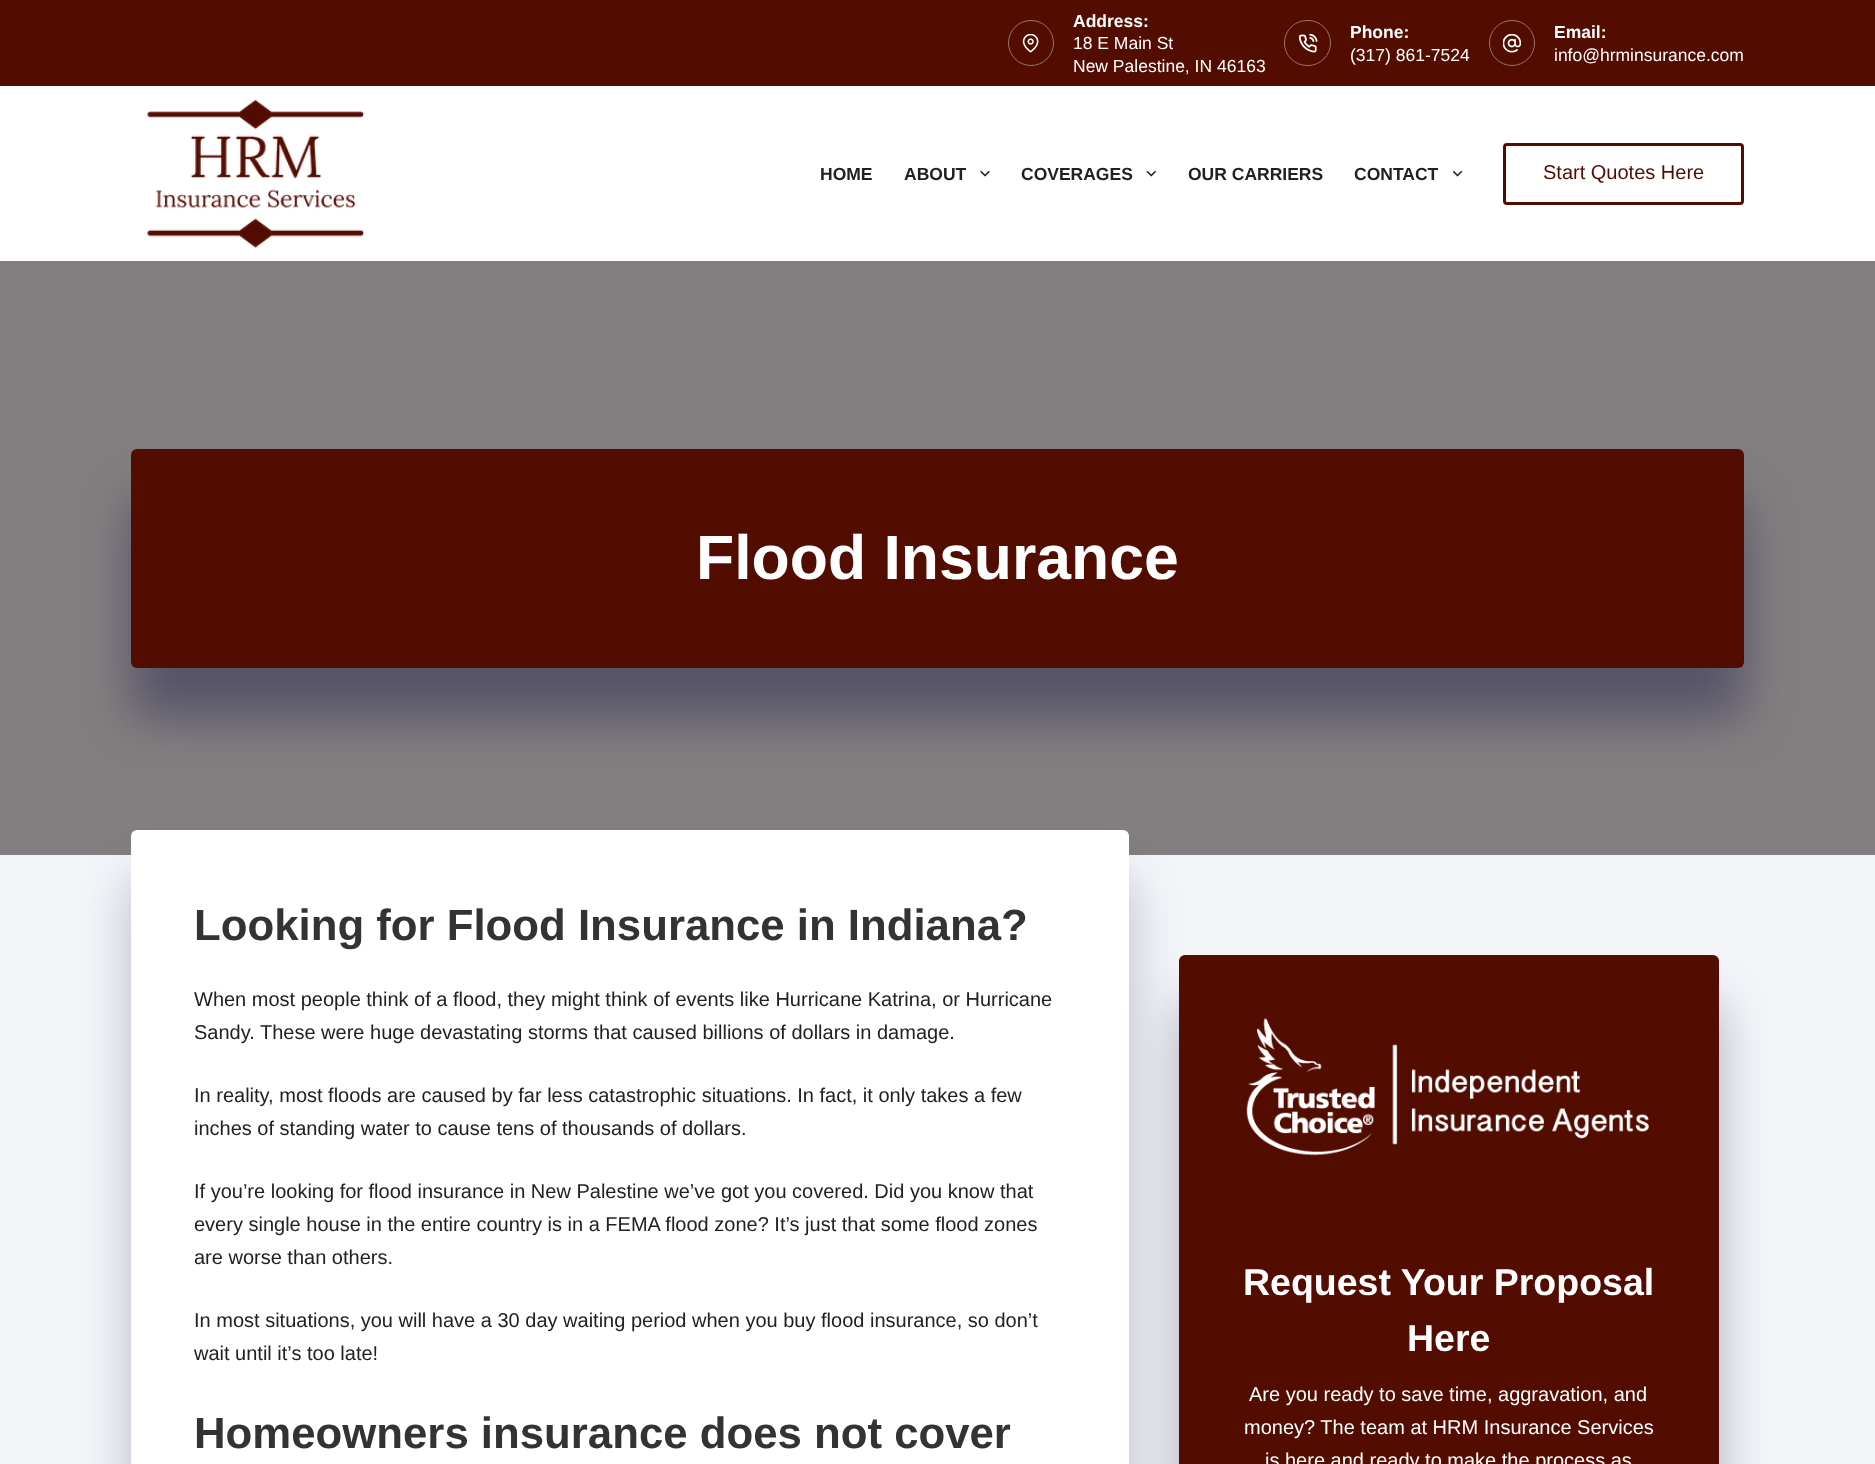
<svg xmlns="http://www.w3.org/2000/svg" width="1875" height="1464">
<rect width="100%" height="100%" fill="#837f80"/>
<rect width="1875" height="86" fill="#520c00"/>
<circle cx="1031" cy="43" r="22.5" fill="none" stroke="#967572"/>
<image x="1022" y="34" width="17" height="19" href="media/1.png"/>
<text x="1073" y="27" style="font-family:Liberation Sans;font-size:17.5px;font-weight:bold;fill:#fff">Address:</text>
<text x="1073" y="49" style="font-family:Liberation Sans;font-size:17.5px;fill:#fff">18 E Main St</text>
<text x="1073" y="72" style="font-family:Liberation Sans;font-size:17.5px;fill:#fff">New Palestine, IN 46163</text>
<rect x="1284.5" y="20.5" width="46" height="45" rx="22.5" fill="none" stroke="#967572"/>
<image x="1299" y="34" width="19" height="19" href="media/2.png"/>
<text x="1350" y="38" style="font-family:Liberation Sans;font-size:17.5px;font-weight:bold;fill:#fff">Phone:</text>
<text x="1350" y="61" style="font-family:Liberation Sans;font-size:17.5px;fill:#fff">(317) 861-7524</text>
<circle cx="1512" cy="43" r="22.5" fill="none" stroke="#967572"/>
<image x="1503" y="34" width="18" height="19" href="media/3.png"/>
<text x="1554" y="38" style="font-family:Liberation Sans;font-size:17.5px;font-weight:bold;fill:#fff">Email:</text>
<text x="1554" y="61" style="font-family:Liberation Sans;font-size:17.5px;fill:#fff">info@hrminsurance.com</text>
<rect y="86" width="1875" height="175" fill="#fff"/>
<image x="147" y="99" width="218" height="149" href="media/4.png"/>
<text x="820" y="180" style="font-family:Liberation Sans;font-size:17.5px;font-weight:bold;fill:#212121">HOME</text>
<text x="904" y="180" style="font-family:Liberation Sans;font-size:17.5px;font-weight:bold;fill:#212121">ABOUT</text>
<image x="980" y="171" width="10" height="6" href="media/5.png"/>
<text x="1021" y="180" style="font-family:Liberation Sans;font-size:17.5px;font-weight:bold;fill:#212121">COVERAGES</text>
<image x="1146" y="171" width="10" height="6" href="media/6.png"/>
<text x="1188" y="180" style="font-family:Liberation Sans;font-size:17.5px;font-weight:bold;fill:#212121">OUR CARRIERS</text>
<text x="1354" y="180" style="font-family:Liberation Sans;font-size:17.5px;font-weight:bold;fill:#212121">CONTACT</text>
<image x="1453" y="171" width="10" height="6" href="media/7.png"/>
<rect x="1504.5" y="144.5" width="238" height="59" rx="2.5" fill="none" stroke="#520c00" stroke-width="3"/>
<text x="1543" y="179" style="font-family:Liberation Sans;font-size:20px;fill:#520c00">Start Quotes Here</text>
<rect x="131" y="499" width="1613" height="219" rx="6" fill="#1c19496e" filter="blur(25px)"/>
<rect x="131" y="449" width="1613" height="219" rx="6" fill="#520c00"/>
<text x="696" y="579" style="font-family:Liberation Sans;font-size:62.5px;font-weight:bold;fill:#fff">Flood Insurance</text>
<rect y="855" width="1875" height="609" fill="#f3f5f9"/>
<rect x="131" y="880" width="998" height="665" rx="6" fill="#1c194945" filter="blur(25px)"/>
<rect x="131" y="830" width="998" height="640" rx="6" fill="#fff"/>
<text x="194" y="940" style="font-family:Liberation Sans;font-size:43.75px;font-weight:bold;fill:#333">Looking for Flood Insurance in Indiana?</text>
<text x="194" y="1006" style="font-family:Liberation Sans;font-size:20px;fill:#212121">When most people think of a flood, they might think of events like Hurricane Katrina, or Hurricane</text>
<text x="194" y="1039" style="font-family:Liberation Sans;font-size:20px;fill:#212121">Sandy. These were huge devastating storms that caused billions of dollars in damage.</text>
<text x="194" y="1102" style="font-family:Liberation Sans;font-size:20px;fill:#212121">In reality, most floods are caused by far less catastrophic situations. In fact, it only takes a few</text>
<text x="194" y="1135" style="font-family:Liberation Sans;font-size:20px;fill:#212121">inches of standing water to cause tens of thousands of dollars.</text>
<text x="194" y="1198" style="font-family:Liberation Sans;font-size:20px;fill:#212121">If you’re looking for flood insurance in New Palestine we’ve got you covered. Did you know that</text>
<text x="194" y="1231" style="font-family:Liberation Sans;font-size:20px;fill:#212121">every single house in the entire country is in a FEMA flood zone? It’s just that some flood zones</text>
<text x="194" y="1264" style="font-family:Liberation Sans;font-size:20px;fill:#212121">are worse than others.</text>
<text x="194" y="1327" style="font-family:Liberation Sans;font-size:20px;fill:#212121">In most situations, you will have a 30 day waiting period when you buy flood insurance, so don’t</text>
<text x="194" y="1360" style="font-family:Liberation Sans;font-size:20px;fill:#212121">wait until it’s too late!</text>
<text x="194" y="1448" style="font-family:Liberation Sans;font-size:43.75px;font-weight:bold;fill:#333">Homeowners insurance does not cover</text>
<rect x="1179" y="1005" width="540" height="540" rx="6" fill="#1c194954" filter="blur(25px)"/>
<rect x="1179" y="955" width="540" height="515" rx="6" fill="#520c00"/>
<image x="1246" y="1018" width="403" height="138" href="media/8.png"/>
<text x="1243" y="1295" style="font-family:Liberation Sans;font-size:37.5px;font-weight:bold;fill:#fff">Request Your Proposal</text>
<text x="1407" y="1351" style="font-family:Liberation Sans;font-size:37.5px;font-weight:bold;fill:#fff">Here</text>
<text x="1249" y="1401" style="font-family:Liberation Sans;font-size:20px;fill:#fff">Are you ready to save time, aggravation, and</text>
<text x="1244" y="1434" style="font-family:Liberation Sans;font-size:20px;fill:#fff">money? The team at HRM Insurance Services</text>
<text x="1265" y="1467" style="font-family:Liberation Sans;font-size:20px;fill:#fff">is here and ready to make the process as</text>
</svg>
